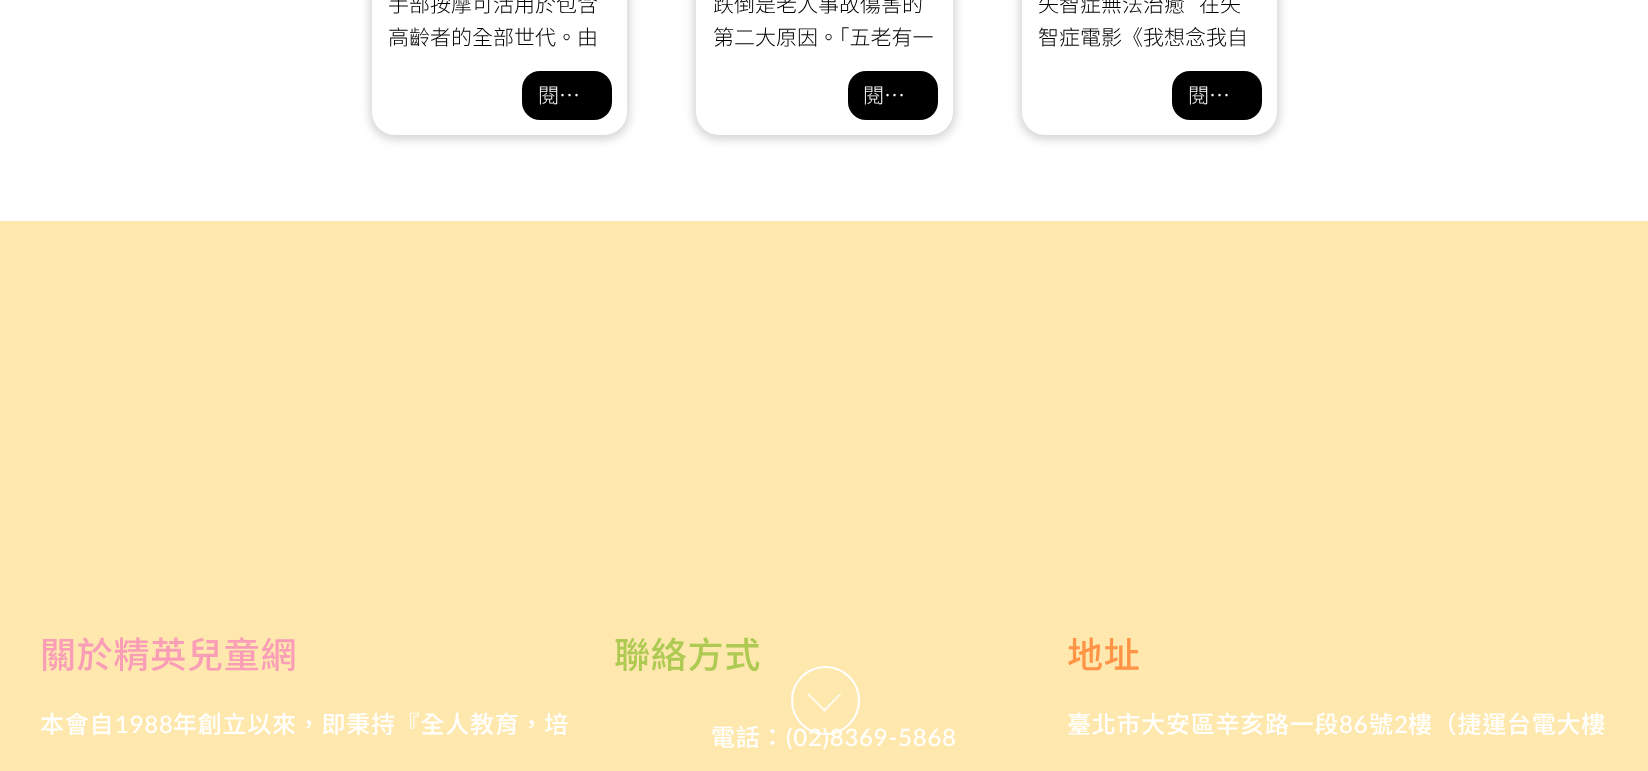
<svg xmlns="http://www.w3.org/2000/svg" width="1648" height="771">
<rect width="100%" height="100%" fill="#fff"/>
<rect x="369" y="-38" width="261" height="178" rx="26" fill="#7979794d" filter="blur(4px)"/>
<rect x="372" y="-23" width="255" height="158" rx="23" fill="#fff"/>
<text x="388" y="12" style="font-family:Noto Sans CJK TC;font-size:21px;font-weight:300;fill:#000">手部按摩可活用於包含</text>
<text x="388" y="45" style="font-family:Noto Sans CJK TC;font-size:21px;font-weight:300;fill:#000">高齡者的全部世代。由</text>
<rect x="522" y="71" width="90" height="49" rx="18" fill="#000"/>
<text x="538" y="103" style="font-family:Noto Sans CJK TC;font-size:21px;font-weight:300;fill:#fff">閱…</text>
<rect x="693" y="-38" width="263" height="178" rx="26" fill="#7979794d" filter="blur(4px)"/>
<rect x="696" y="-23" width="257" height="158" rx="23" fill="#fff"/>
<text x="713" y="12" style="font-family:Noto Sans CJK TC;font-size:21px;font-weight:300;fill:#000">跌倒是老人事故傷害的</text>
<text x="713" y="45" style="font-family:Noto Sans CJK TC;font-size:21px;font-weight:300;fill:#000">第二大原因。「五老有一</text>
<rect x="848" y="71" width="90" height="49" rx="18" fill="#000"/>
<text x="863" y="103" style="font-family:Noto Sans CJK TC;font-size:21px;font-weight:300;fill:#fff">閱…</text>
<rect x="1019" y="-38" width="261" height="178" rx="26" fill="#7979794d" filter="blur(4px)"/>
<rect x="1022" y="-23" width="255" height="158" rx="23" fill="#fff"/>
<text x="1038" y="12" style="font-family:Noto Sans CJK TC;font-size:21px;font-weight:300;fill:#000">失智症無法治癒</text>
<text x="1199" y="12" style="font-family:Noto Sans CJK TC;font-size:21px;font-weight:300;fill:#000">在失</text>
<text x="1038" y="45" style="font-family:Noto Sans CJK TC;font-size:21px;font-weight:300;fill:#000">智症電影《我想念我自</text>
<rect x="1172" y="71" width="90" height="49" rx="18" fill="#000"/>
<text x="1188" y="103" style="font-family:Noto Sans CJK TC;font-size:21px;font-weight:300;fill:#fff">閱…</text>
<rect y="221" width="1648" height="550" fill="#ffe8ae"/>
<text x="40" y="668" style="font-family:Noto Sans CJK TC;font-size:36px;font-weight:500;letter-spacing:0.75px;fill:#fa9db7">關於精英兒童網</text>
<text x="40" y="733" style="font-family:Noto Sans CJK TC;font-size:24px;font-weight:500;letter-spacing:0.75px;fill:#fff">本會自</text>
<text x="115" y="733" style="font-family:Lato;font-size:24px;font-weight:500;letter-spacing:0.75px;fill:#fff">1988</text>
<text x="173" y="733" style="font-family:Noto Sans CJK TC;font-size:24px;font-weight:500;letter-spacing:0.75px;fill:#fff">年創立以來，即秉持『全人教育，培</text>
<text x="614" y="668" style="font-family:Noto Sans CJK TC;font-size:36px;font-weight:500;letter-spacing:0.75px;fill:#aeca52">聯絡方式</text>
<text x="711" y="746" style="font-family:Noto Sans CJK TC;font-size:24px;font-weight:500;letter-spacing:0.75px;fill:#fff">電話：</text>
<text x="786" y="746" style="font-family:Lato;font-size:24px;font-weight:500;letter-spacing:0.75px;fill:#fff">(02)8369-5868</text>
<text x="1067" y="668" style="font-family:Noto Sans CJK TC;font-size:36px;font-weight:500;letter-spacing:0.75px;fill:#ff9346">地址</text>
<text x="1067" y="733" style="font-family:Noto Sans CJK TC;font-size:24px;font-weight:500;letter-spacing:0.75px;fill:#fff">臺北市大安區辛亥路一段</text>
<text x="1339" y="733" style="font-family:Lato;font-size:24px;font-weight:500;letter-spacing:0.75px;fill:#fff">86</text>
<text x="1369" y="733" style="font-family:Noto Sans CJK TC;font-size:24px;font-weight:500;letter-spacing:0.75px;fill:#fff">號</text>
<text x="1394" y="733" style="font-family:Lato;font-size:24px;font-weight:500;letter-spacing:0.75px;fill:#fff">2</text>
<text x="1408" y="733" style="font-family:Noto Sans CJK TC;font-size:24px;font-weight:500;letter-spacing:0.75px;fill:#fff">樓（捷運台電大樓</text>
<circle cx="825.5" cy="700.5" r="33.5" fill="none" stroke="#fff" stroke-width="2"/>
<path d="M823 710.5l17-17l1 1l-16.5 17z" fill="#fff"/>
<path d="M807.5 694.5l1-1l17 17l-1 1z" fill="#fff"/>
</svg>
